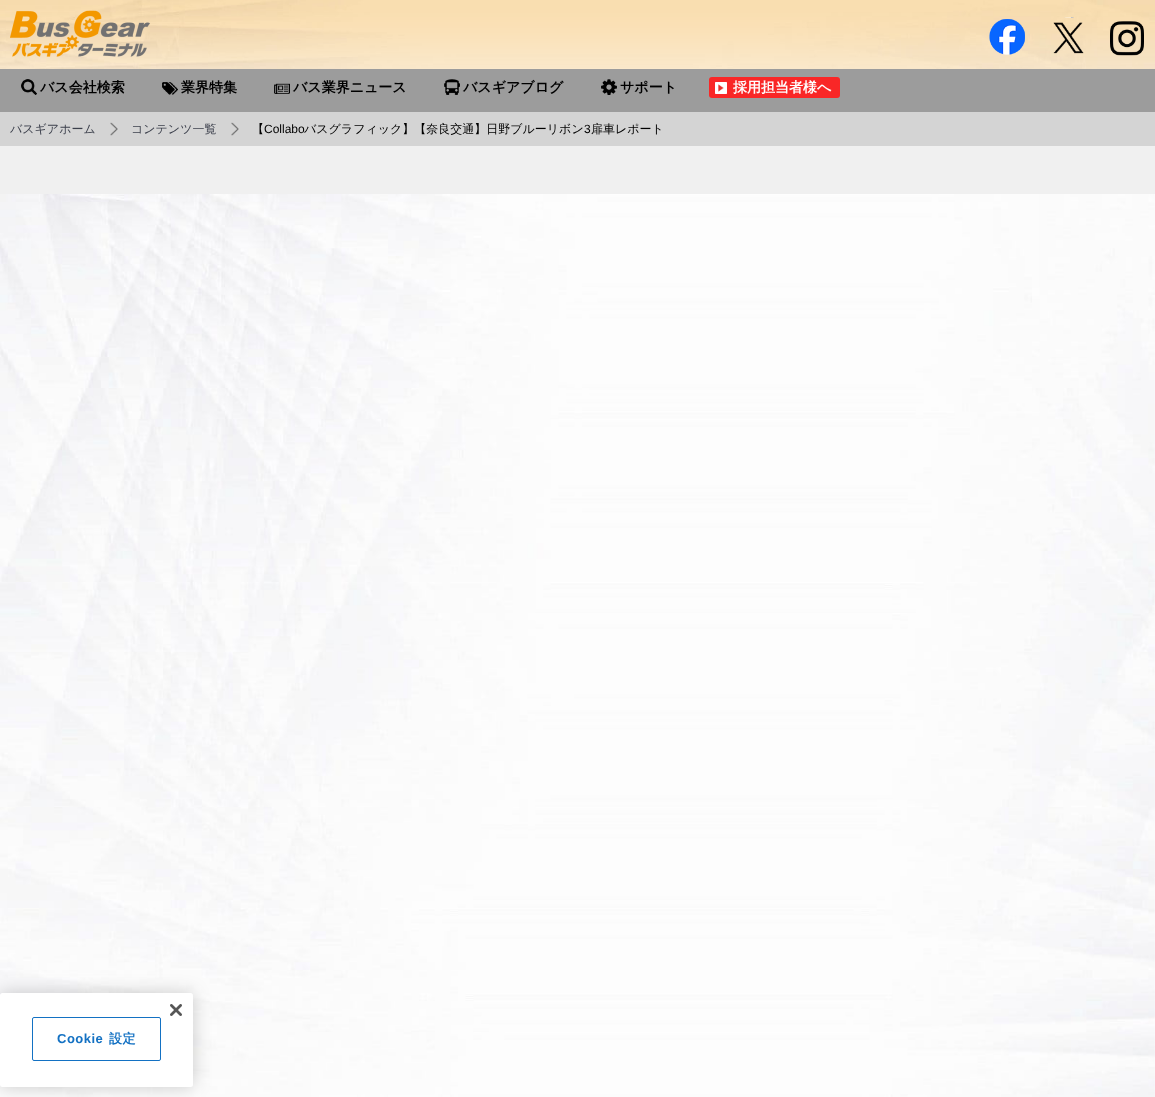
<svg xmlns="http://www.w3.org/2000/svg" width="1155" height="1097">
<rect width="100%" height="100%" fill="#fff"/>
<image x="0" y="194" width="1155" height="903" href="media/1.png"/>
<image x="0" y="0" width="1155" height="69" href="media/2.png"/>
<image x="10" y="10" width="140" height="47" href="media/3.png"/>
<image x="989" y="19" width="36" height="36" href="media/4.png"/>
<image x="1053" y="17" width="31" height="37" href="media/5.png"/>
<image x="1110" y="21" width="34" height="35" href="media/6.png"/>
<rect y="69" width="1155" height="43" fill="#9c9c9c"/>
<image x="21" y="79" width="16" height="16" href="media/7.png"/>
<text x="40" y="92" style="font-family:WenQuanYi Zen Hei;font-size:14px;font-weight:bold;fill:#000">バス会社検索</text>
<image x="162" y="82" width="16" height="13" href="media/8.png"/>
<text x="181" y="92" style="font-family:WenQuanYi Zen Hei;font-size:14px;font-weight:bold;fill:#000">業界特集</text>
<image x="274" y="83" width="16" height="11" href="media/9.png"/>
<text x="293" y="92" style="font-family:WenQuanYi Zen Hei;font-size:14px;font-weight:bold;fill:#000">バス業界ニュース</text>
<image x="444" y="79" width="16" height="16" href="media/10.png"/>
<text x="463" y="92" style="font-family:WenQuanYi Zen Hei;font-size:14px;font-weight:bold;fill:#000">バスギアブログ</text>
<image x="601" y="79" width="16" height="16" href="media/11.png"/>
<text x="620" y="92" style="font-family:WenQuanYi Zen Hei;font-size:14px;font-weight:bold;fill:#000">サポート</text>
<rect x="709" y="77" width="131" height="21" rx="3" fill="#f92727"/>
<image x="715" y="82" width="12" height="12" href="media/12.png"/>
<text x="733" y="92" style="font-family:WenQuanYi Zen Hei;font-size:14px;font-weight:bold;fill:#fff">採用担当者様へ</text>
<rect y="112" width="1155" height="34" fill="#d4d4d4"/>
<text x="10" y="133" style="font-family:WenQuanYi Zen Hei;font-size:12px;font-weight:500;fill:#3b3f4b">バスギアホーム</text>
<image x="110" y="122" width="8" height="14" href="media/13.png"/>
<text x="131" y="133" style="font-family:WenQuanYi Zen Hei;font-size:12px;font-weight:500;fill:#3b3f4b">コンテンツ一覧</text>
<image x="231" y="122" width="8" height="14" href="media/14.png"/>
<text x="252" y="133" style="font-family:WenQuanYi Zen Hei;font-size:12px;font-weight:500;fill:#000">【</text>
<text x="264" y="133" style="font-family:Liberation Sans;font-size:12px;fill:#000">Collabo</text>
<text x="304" y="133" style="font-family:WenQuanYi Zen Hei;font-size:12px;font-weight:500;fill:#000">バスグラフィック】【奈良交通】日野ブルーリボン</text>
<text x="584" y="133" style="font-family:Liberation Sans;font-size:12px;fill:#000">3</text>
<text x="591" y="133" style="font-family:WenQuanYi Zen Hei;font-size:12px;font-weight:500;fill:#000">扉車レポート</text>
<rect y="146" width="1155" height="48" fill="#f0f0f0"/>
<rect y="993" width="193" height="94" rx="2.5" fill="#00000033" filter="blur(9px)"/>
<rect y="993" width="193" height="94" rx="2.5" fill="#fff"/>
<image x="170" y="1004" width="12" height="12" href="media/15.png"/>
<rect x="32.5" y="1017.5" width="128" height="43" rx="1.5" fill="none" stroke="#1371c3"/>
<text x="57" y="1043" style="font-family:Liberation Sans;font-size:13px;font-weight:bold;letter-spacing:0.5px;fill:#1371c3">Cookie</text>
<text x="109" y="1043" style="font-family:WenQuanYi Zen Hei;font-size:13px;font-weight:bold;letter-spacing:0.5px;fill:#1371c3">設定</text>
</svg>
